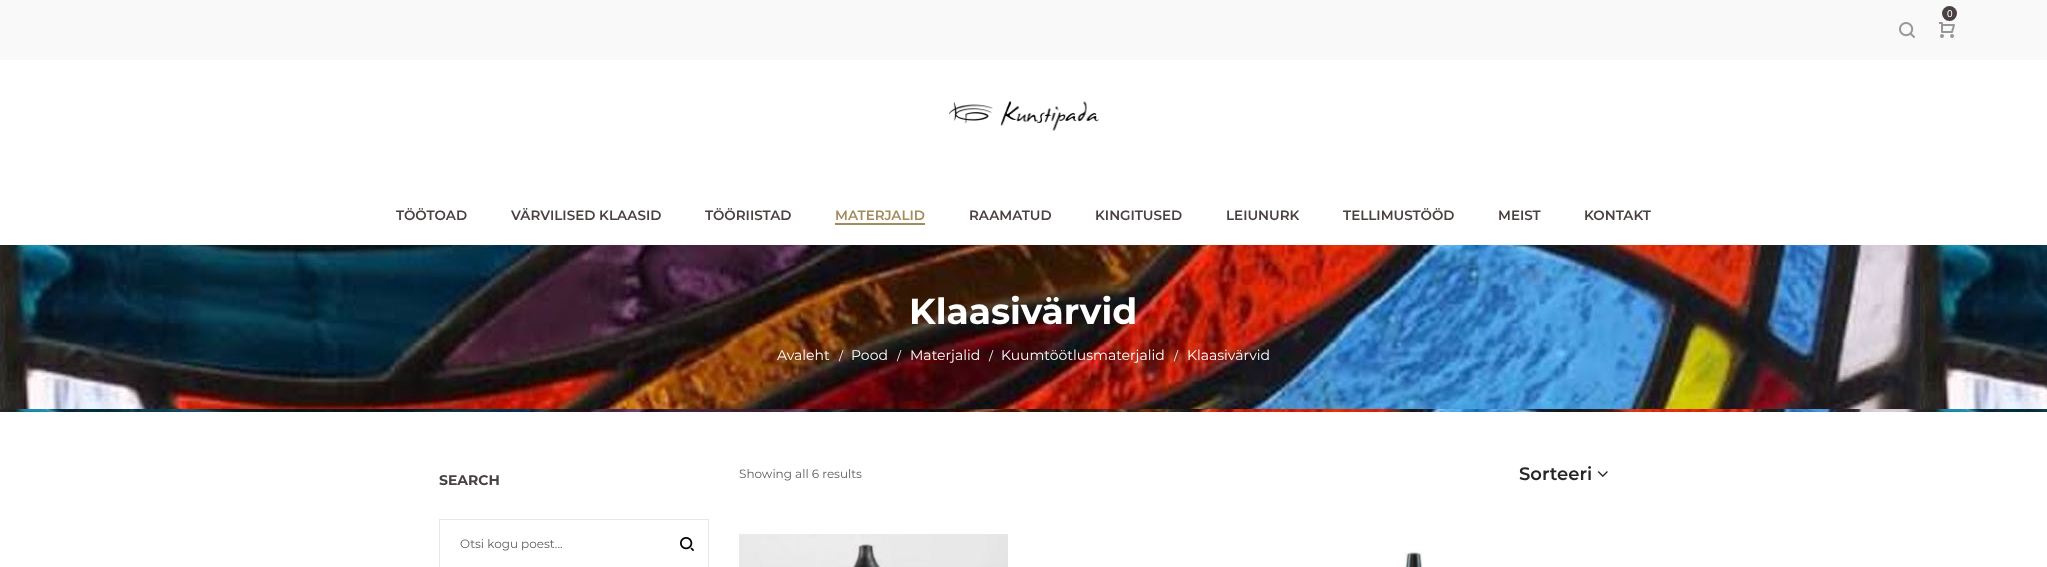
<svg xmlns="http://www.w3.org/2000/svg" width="2047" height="567">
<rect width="100%" height="100%" fill="#fff"/>
<rect width="2047" height="60" fill="#f9f9f9"/>
<circle cx="1949.5" cy="13.5" r="7.5" fill="#4a4141"/>
<text x="1947" y="17" style="font-family:Liberation Sans;font-size:10px;fill:#fff">0</text>
<image x="1939" y="22" width="16" height="16" href="media/1.png"/>
<image x="1899" y="22" width="16" height="16" href="media/2.png"/>
<image x="949" y="101" width="150" height="30" href="media/3.png"/>
<text x="396" y="220" style="font-family:Montserrat;font-size:13.5px;font-weight:600;fill:#4a4141">TÖÖTOAD</text>
<text x="511" y="220" style="font-family:Montserrat;font-size:13.5px;font-weight:600;fill:#4a4141">VÄRVILISED KLAASID</text>
<text x="705" y="220" style="font-family:Montserrat;font-size:13.5px;font-weight:600;fill:#4a4141">TÖÖRIISTAD</text>
<text x="835" y="220" style="font-family:Montserrat;font-size:13.5px;font-weight:600;fill:#a38b5e">MATERJALID</text>
<rect x="835" y="223" width="90" height="2" fill="#a38b5e"/>
<text x="969" y="220" style="font-family:Montserrat;font-size:13.5px;font-weight:600;fill:#4a4141">RAAMATUD</text>
<text x="1095" y="220" style="font-family:Montserrat;font-size:13.5px;font-weight:600;fill:#4a4141">KINGITUSED</text>
<text x="1226" y="220" style="font-family:Montserrat;font-size:13.5px;font-weight:600;fill:#4a4141">LEIUNURK</text>
<text x="1343" y="220" style="font-family:Montserrat;font-size:13.5px;font-weight:600;fill:#4a4141">TELLIMUSTÖÖD</text>
<text x="1498" y="220" style="font-family:Montserrat;font-size:13.5px;font-weight:600;fill:#4a4141">MEIST</text>
<text x="1584" y="220" style="font-family:Montserrat;font-size:13.5px;font-weight:600;fill:#4a4141">KONTAKT</text>
<image x="0" y="245" width="2047" height="167" href="media/4.png"/>
<text x="909" y="324" style="font-family:Montserrat;font-size:36px;font-weight:bold;fill:#fff">Klaasivärvid</text>
<text x="777" y="360" style="font-family:Montserrat;font-size:14px;fill:#fff">Avaleht</text>
<text x="839" y="360" style="font-family:Montserrat;font-size:12px;fill:#fff">/</text>
<text x="851" y="360" style="font-family:Montserrat;font-size:14px;fill:#fff">Pood</text>
<text x="897" y="360" style="font-family:Montserrat;font-size:12px;fill:#fff">/</text>
<text x="910" y="360" style="font-family:Montserrat;font-size:14px;fill:#fff">Materjalid</text>
<text x="989" y="360" style="font-family:Montserrat;font-size:12px;fill:#fff">/</text>
<text x="1001" y="360" style="font-family:Montserrat;font-size:14px;fill:#fff">Kuumtöötlusmaterjalid</text>
<text x="1174" y="360" style="font-family:Montserrat;font-size:12px;fill:#fff">/</text>
<text x="1187" y="360" style="font-family:Montserrat;font-size:14px;fill:#fff">Klaasivärvid</text>
<text x="739" y="478" style="font-family:Montserrat;font-size:12px;fill:#5e5e5e">Showing all 6 results</text>
<text x="1519" y="480" style="font-family:Montserrat;font-size:18px;font-weight:600;fill:#262626">Sorteeri</text>
<image x="1597" y="471" width="11" height="6" href="media/5.png"/>
<image x="739" y="534" width="269" height="33" href="media/6.png"/>
<image x="1404" y="550" width="19" height="17" href="media/7.png"/>
<text x="439" y="485" style="font-family:Montserrat;font-size:14px;font-weight:bold;fill:#4a4141">SEARCH</text>
<rect x="439.5" y="519.5" width="269" height="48" fill="none" stroke="#e7e7e7"/>
<text x="460" y="548" style="font-family:Montserrat;font-size:12px;fill:#5e5e5e">Otsi kogu poest...</text>
<image x="680" y="537" width="14" height="14" href="media/8.png"/>
</svg>
